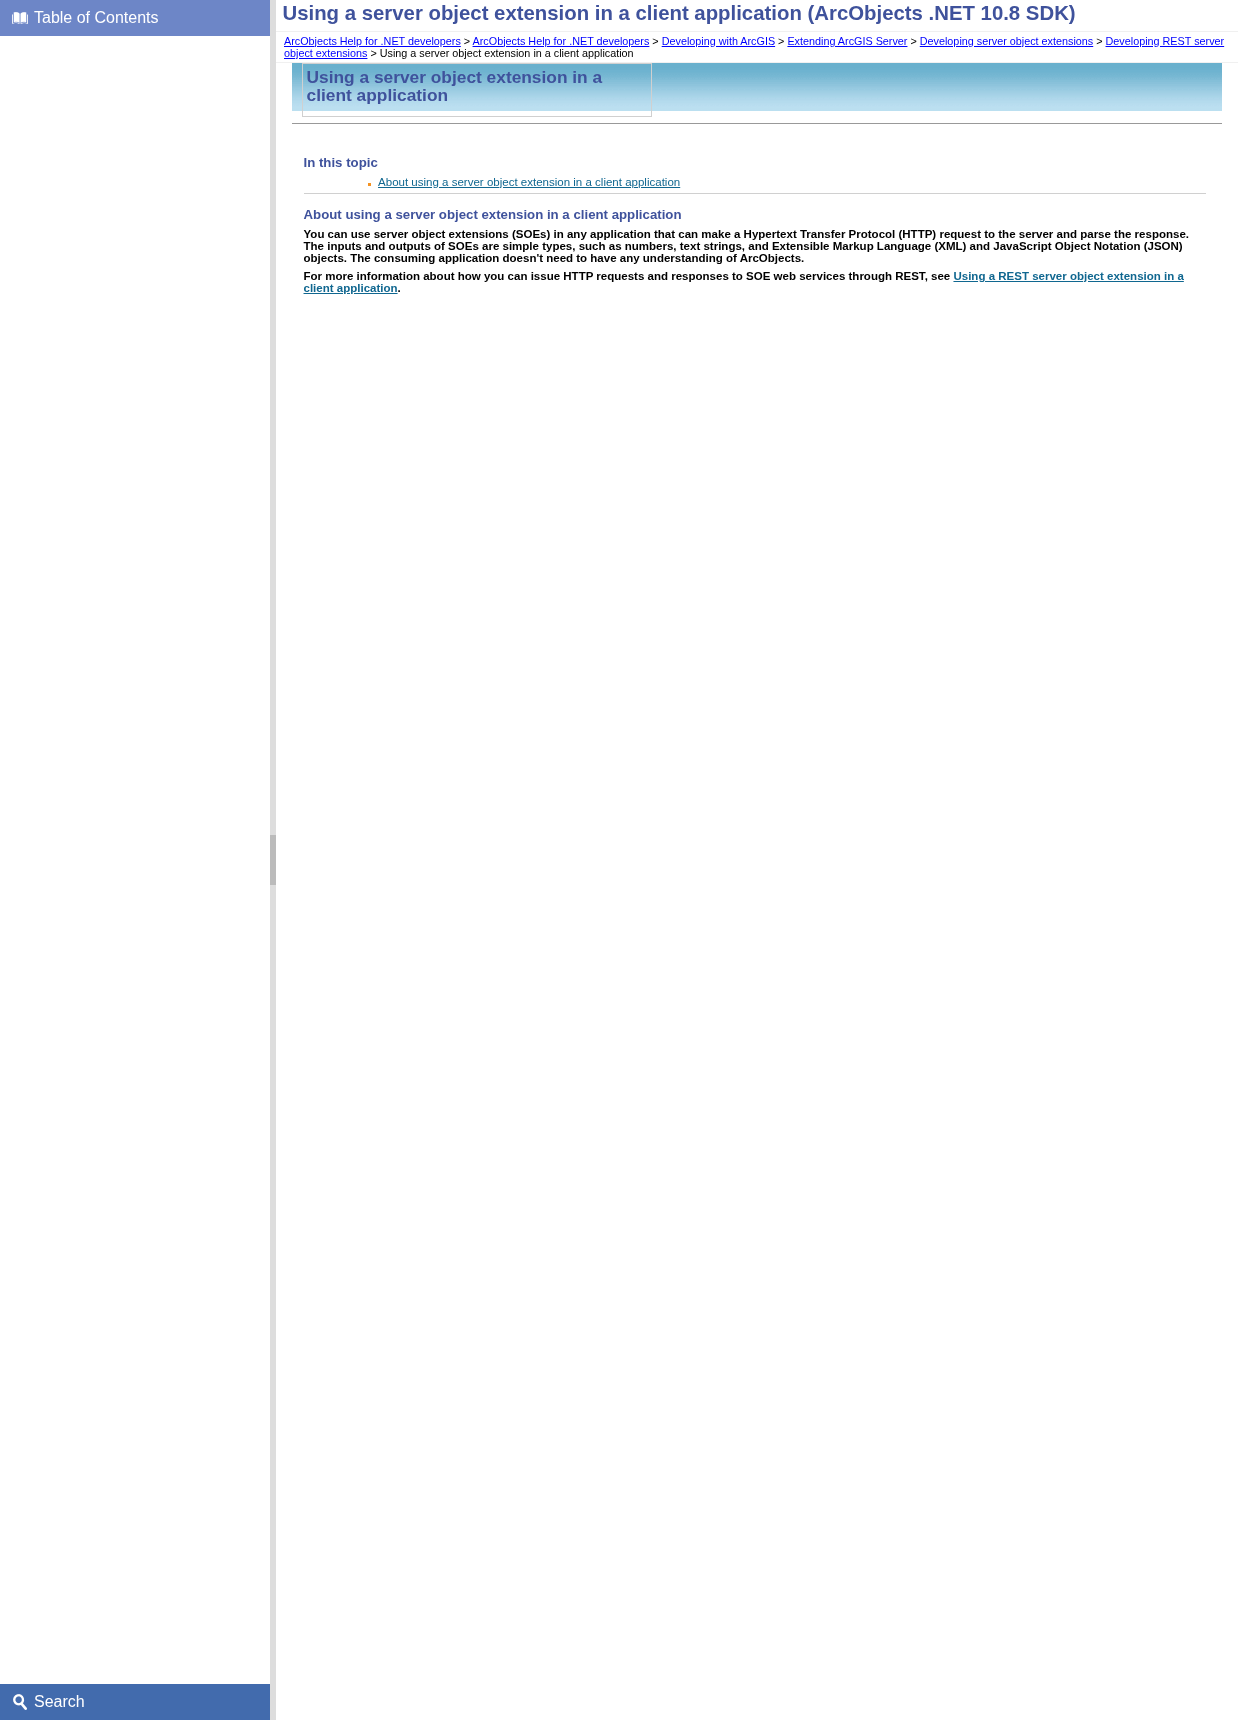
<svg xmlns="http://www.w3.org/2000/svg" width="1238" height="1720">
<rect width="100%" height="100%" fill="#fff"/>
<image x="0" y="0" width="270" height="1720" href="media/1.png"/>
<rect x="270" width="6" height="1720" fill="#ddd"/>
<rect x="270" y="835" width="6" height="50" fill="#bbb"/>
<image x="276" y="5" width="962" height="289" href="media/2.png"/>
</svg>
